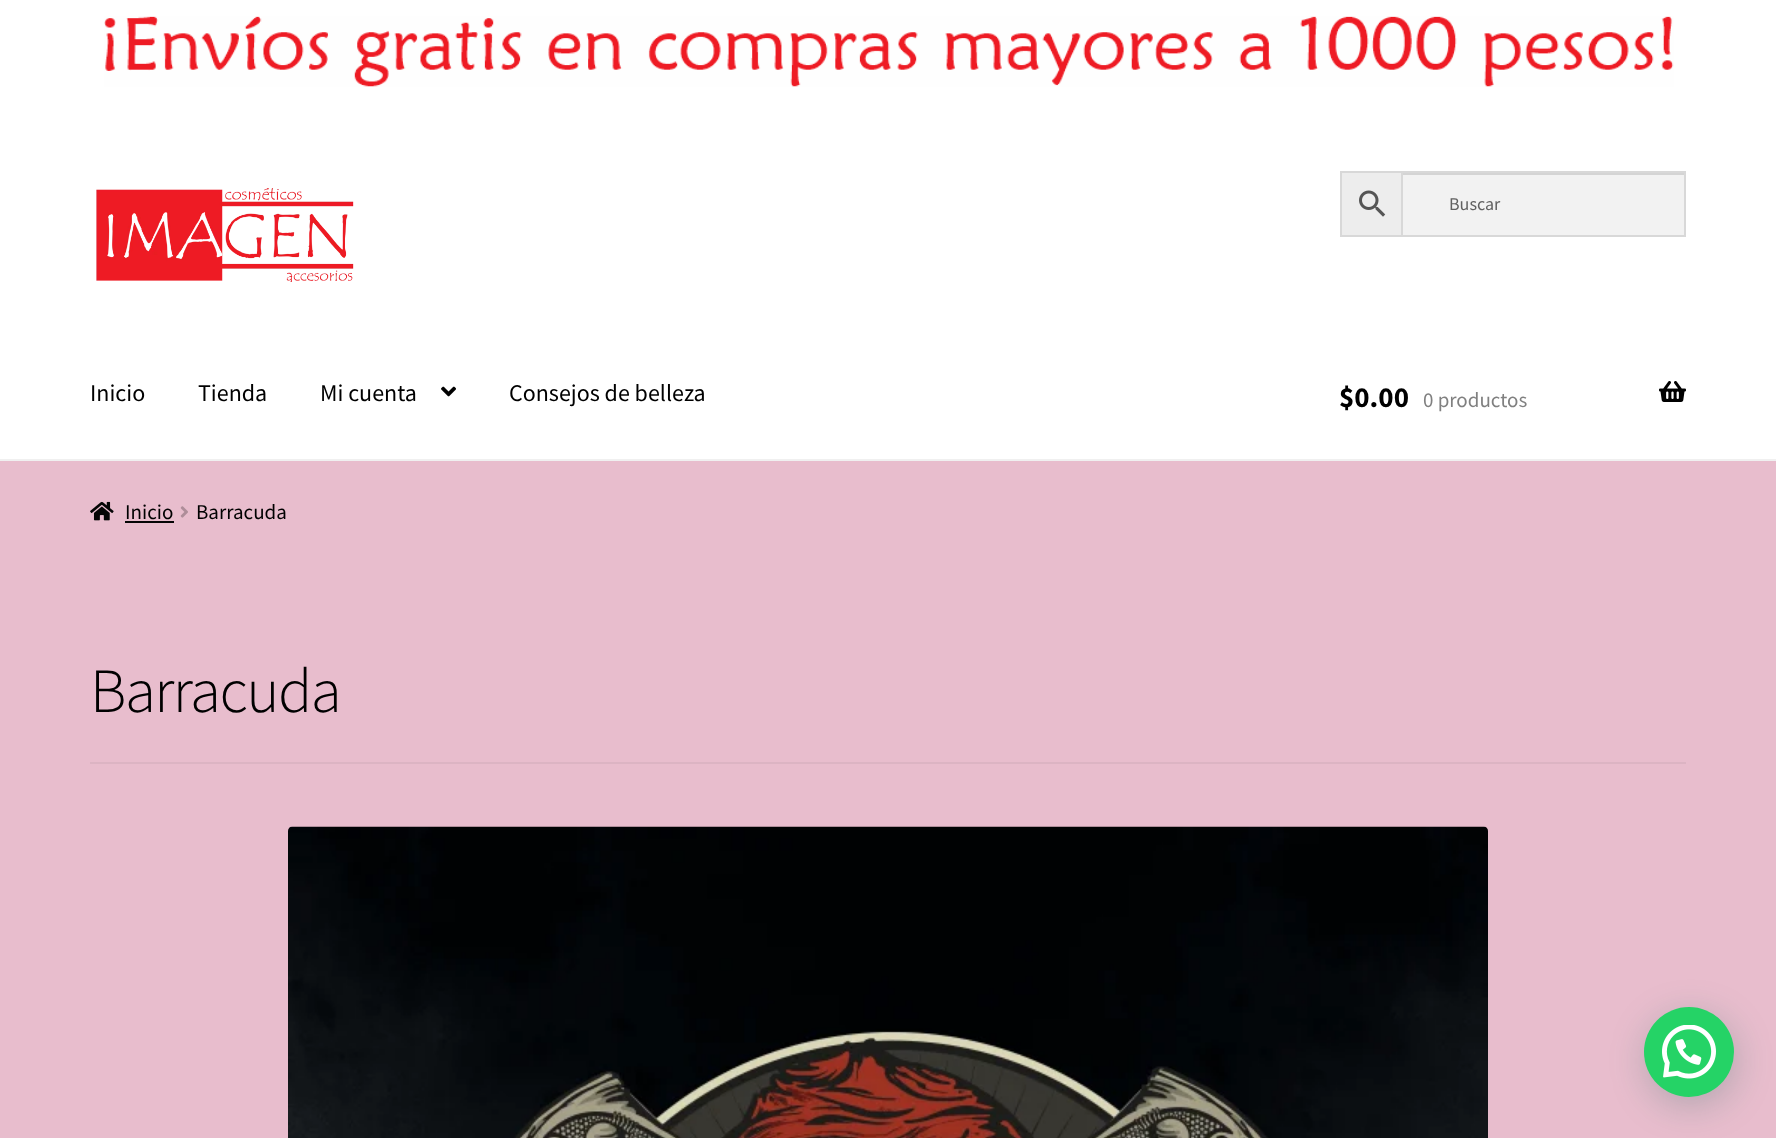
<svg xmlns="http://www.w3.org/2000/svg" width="1776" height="1138">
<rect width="100%" height="100%" fill="#e8bdcd"/>
<rect width="1776" height="459" fill="#fff"/>
<image x="104" y="16" width="1570" height="71" href="media/1.png"/>
<rect y="459" width="1776" height="2" fill="#f0f0f0"/>
<image x="96" y="188" width="258" height="94" href="media/2.png"/>
<rect x="1341" y="172" width="61" height="64" fill="#ededed" stroke="#d8d8d8" stroke-width="2"/>
<image x="1359" y="190" width="27" height="27" href="media/3.png"/>
<rect x="1403" y="175" width="281" height="60" fill="#f2f2f2"/>
<rect x="1403" y="173" width="282" height="2" fill="#d4d4d4"/>
<rect x="1402" y="172" width="283" height="64" fill="none" stroke="#d8d8d8" stroke-width="2"/>
<text x="1449" y="210" style="font-family:Source Sans Pro;font-size:18px;fill:#616161">Buscar</text>
<text x="90" y="401" style="font-family:Source Sans Pro;font-size:24px;fill:#000">Inicio</text>
<text x="198" y="401" style="font-family:Source Sans Pro;font-size:24px;fill:#000">Tienda</text>
<text x="320" y="401" style="font-family:Source Sans Pro;font-size:24px;fill:#000">Mi cuenta</text>
<image x="441" y="386" width="15" height="11" href="media/4.png"/>
<text x="509" y="401" style="font-family:Source Sans Pro;font-size:24px;fill:#000">Consejos de belleza</text>
<text x="1339" y="407" style="font-family:Source Sans Pro;font-size:29px;font-weight:bold;fill:#000">$0.00</text>
<text x="1423" y="407" style="font-family:Source Sans Pro;font-size:21px;fill:#808080">0 productos</text>
<image x="1659" y="381" width="27" height="21" href="media/5.png"/>
<image x="90" y="501" width="24" height="20" href="media/6.png"/>
<text x="125" y="519" style="font-family:Source Sans Pro;font-size:21px;fill:#000">Inicio</text>
<rect x="125" y="521" width="49" height="2" fill="#050505"/>
<image x="180" y="506" width="8" height="12" href="media/7.png"/>
<text x="196" y="519" style="font-family:Source Sans Pro;font-size:21px;fill:#000">Barracuda</text>
<rect x="90" y="762" width="1596" height="2" fill="#dcb4c3"/>
<text x="90" y="712" style="font-family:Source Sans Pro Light;font-size:63px;font-weight:300;letter-spacing:-1.5px;fill:#000">Barracuda</text>
<image x="288" y="826" width="1200" height="312" href="media/8.png"/>
<rect x="1646" y="1016" width="90" height="90" rx="45" fill="#075e543d" filter="blur(18px)"/>
<circle cx="1689" cy="1052" r="45" fill="#25d366"/>
<image x="1662" y="1025" width="54" height="54" href="media/9.png"/>
</svg>
